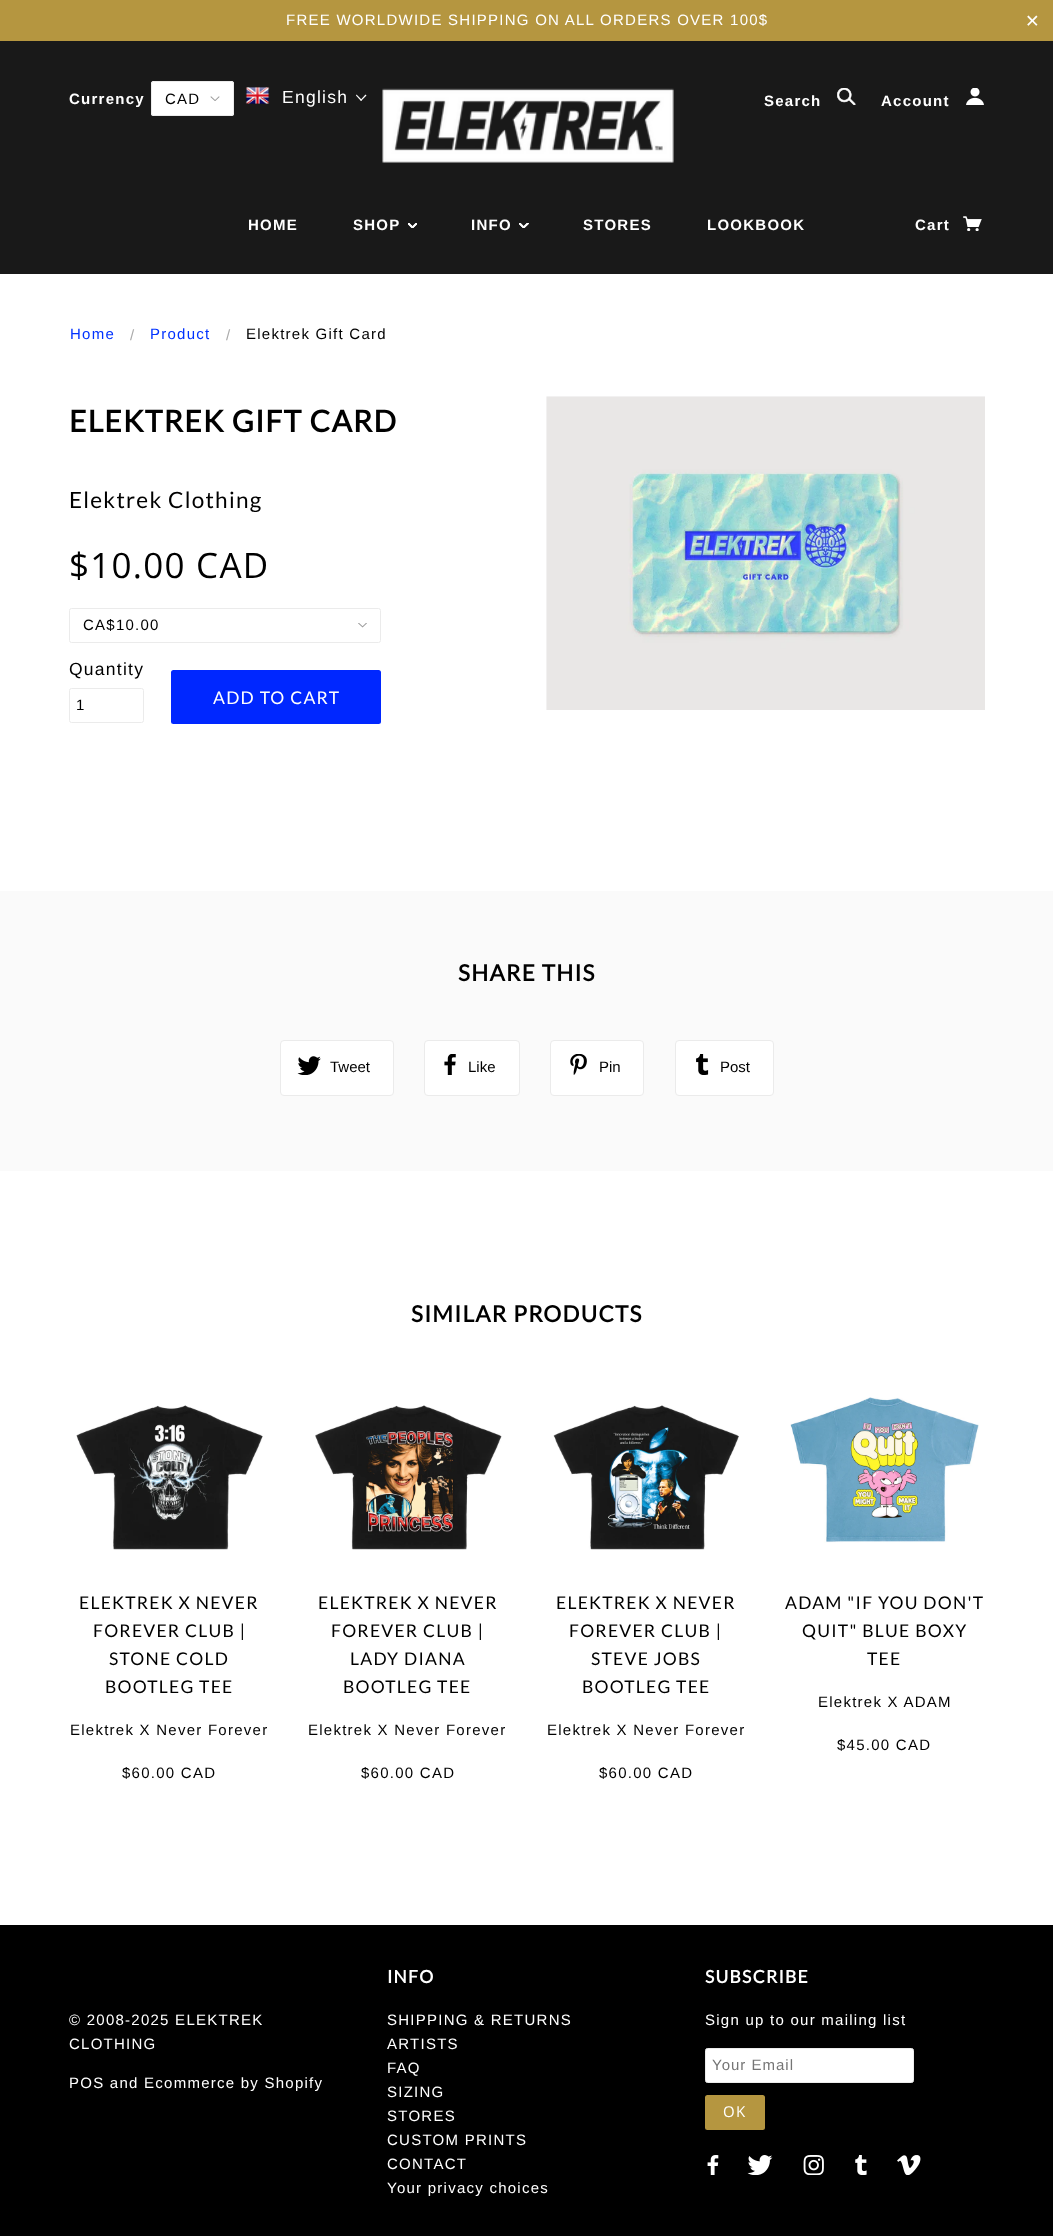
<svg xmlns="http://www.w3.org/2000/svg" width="1053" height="2236">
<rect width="100%" height="100%" fill="#fff"/>
<rect width="1053" height="41" fill="#b59640"/>
<text x="286" y="25" style="font-family:Liberation Sans;font-size:15px;letter-spacing:1.25px;fill:#fff">FREE WORLDWIDE SHIPPING ON ALL ORDERS OVER 100$</text>
<text x="1025" y="27" style="font-family:DejaVu Sans;font-size:17.5px;letter-spacing:1.25px;fill:#fff">✕</text>
<rect y="41" width="1053" height="233" fill="#191919"/>
<text x="69" y="104" style="font-family:Liberation Sans;font-size:15px;font-weight:bold;letter-spacing:1.25px;fill:#fff">Currency</text>
<rect x="151" y="81" width="83" height="35" rx="2.5" fill="#fff"/>
<image x="210" y="96" width="10" height="5" href="media/1.png"/>
<rect x="151.5" y="81.5" width="82" height="34" rx="2" fill="none" stroke="#ebebeb"/>
<text x="165" y="104" style="font-family:Liberation Sans;font-size:15px;letter-spacing:1.25px;fill:#000">CAD</text>
<image x="245" y="87" width="25" height="17" href="media/2.png"/>
<text x="282" y="103" style="font-family:Liberation Sans;font-size:17.5px;letter-spacing:1.25px;fill:#fff">English</text>
<path d="M365.5 94.5l1 1l-5.5 5.5l-.5-1z" fill="#fff"/>
<path d="M356.5 94.5l5.5 5.5l-1 1l-5-5.5z" fill="#fff"/>
<image x="382" y="88" width="292" height="75" href="media/3.png"/>
<text x="764" y="106" style="font-family:Liberation Sans;font-size:15px;font-weight:bold;letter-spacing:1.25px;fill:#fff">Search</text>
<image x="837" y="88" width="19" height="17" href="media/4.png"/>
<text x="881" y="106" style="font-family:Liberation Sans;font-size:15px;font-weight:bold;letter-spacing:1.25px;fill:#fff">Account</text>
<image x="966" y="88" width="18" height="17" href="media/5.png"/>
<text x="248" y="230" style="font-family:Liberation Sans;font-size:15px;font-weight:bold;letter-spacing:1.25px;fill:#fff">HOME</text>
<text x="353" y="230" style="font-family:Liberation Sans;font-size:15px;font-weight:bold;letter-spacing:1.25px;fill:#fff">SHOP</text>
<image x="408" y="223" width="9" height="5" href="media/6.png"/>
<text x="471" y="230" style="font-family:Liberation Sans;font-size:15px;font-weight:bold;letter-spacing:1.25px;fill:#fff">INFO</text>
<image x="519" y="223" width="10" height="5" href="media/7.png"/>
<text x="583" y="230" style="font-family:Liberation Sans;font-size:15px;font-weight:bold;letter-spacing:1.25px;fill:#fff">STORES</text>
<text x="707" y="230" style="font-family:Liberation Sans;font-size:15px;font-weight:bold;letter-spacing:1.25px;fill:#fff">LOOKBOOK</text>
<text x="915" y="230" style="font-family:Liberation Sans;font-size:15px;font-weight:bold;letter-spacing:1.25px;fill:#fff">Cart</text>
<image x="963" y="216" width="19" height="15" href="media/8.png"/>
<text x="70" y="339" style="font-family:Liberation Sans;font-size:15px;letter-spacing:1.25px;fill:#0032ff">Home</text>
<text x="130" y="340" style="font-family:Liberation Sans;font-size:15px;letter-spacing:1.25px;fill:#aaa">/</text>
<text x="150" y="339" style="font-family:Liberation Sans;font-size:15px;letter-spacing:1.25px;fill:#0032ff">Product</text>
<text x="226" y="340" style="font-family:Liberation Sans;font-size:15px;letter-spacing:1.25px;fill:#aaa">/</text>
<text x="246" y="339" style="font-family:Liberation Sans;font-size:15px;letter-spacing:1.25px;fill:#000">Elektrek Gift Card</text>
<text x="69" y="432" style="font-family:Lato;font-size:30px;font-weight:bold;letter-spacing:1.25px;fill:#000">ELEKTREK GIFT CARD</text>
<text x="69" y="508" style="font-family:Lato;font-size:22.5px;letter-spacing:1.25px;fill:#000">Elektrek Clothing</text>
<text x="69" y="578" style="font-family:Open Sans;font-size:35px;letter-spacing:1.25px;fill:#000">$10.00 CAD</text>
<image x="358" y="623" width="9" height="5" href="media/9.png"/>
<rect x="69.5" y="608.5" width="311" height="34" rx="2" fill="none" stroke="#ebebeb"/>
<text x="83" y="630" style="font-family:Liberation Sans;font-size:15px;letter-spacing:1.25px;fill:#000">CA$10.00</text>
<text x="69" y="675" style="font-family:Liberation Sans;font-size:17.5px;letter-spacing:1.25px;fill:#000">Quantity</text>
<rect x="69.5" y="688.5" width="74" height="34" rx="2" fill="none" stroke="#ebebeb"/>
<text x="76" y="710" style="font-family:Liberation Sans;font-size:15px;letter-spacing:1px;fill:#000">1</text>
<rect x="171" y="670" width="210" height="54" rx="2.5" fill="#0027ff"/>
<text x="213" y="704" style="font-family:Lato;font-size:17.5px;letter-spacing:1.25px;fill:#fff">ADD TO CART</text>
<image x="546" y="396" width="439" height="314" href="media/10.png"/>
<rect y="891" width="1053" height="280" fill="#fafafa"/>
<text x="458" y="981" style="font-family:Lato;font-size:22.5px;font-weight:bold;letter-spacing:1.25px;fill:#000">SHARE THIS</text>
<rect x="280.5" y="1040.5" width="113" height="55" rx="3.5" fill="#fff" stroke="#ebebeb"/>
<image x="297" y="1056" width="24" height="19" href="media/11.png"/>
<text x="330" y="1072" style="font-family:Liberation Sans;font-size:15px;fill:#000">Tweet</text>
<rect x="424.5" y="1040.5" width="95" height="55" rx="3.5" fill="#fff" stroke="#ebebeb"/>
<image x="444" y="1054" width="12" height="21" href="media/12.png"/>
<text x="468" y="1072" style="font-family:Liberation Sans;font-size:15px;fill:#000">Like</text>
<rect x="550.5" y="1040.5" width="93" height="55" rx="3.5" fill="#fff" stroke="#ebebeb"/>
<image x="570" y="1054" width="17" height="21" href="media/13.png"/>
<text x="599" y="1072" style="font-family:Liberation Sans;font-size:15px;fill:#000">Pin</text>
<rect x="675.5" y="1040.5" width="98" height="55" rx="3.5" fill="#fff" stroke="#ebebeb"/>
<image x="696" y="1054" width="13" height="21" href="media/14.png"/>
<text x="720" y="1072" style="font-family:Liberation Sans;font-size:15px;fill:#000">Post</text>
<text x="411" y="1322" style="font-family:Lato;font-size:22.5px;font-weight:bold;letter-spacing:1.25px;fill:#000">SIMILAR PRODUCTS</text>
<image x="76" y="1405" width="187" height="145" href="media/15.png"/>
<text x="79" y="1609" style="font-family:Lato;font-size:17.5px;letter-spacing:1.25px;fill:#000">ELEKTREK X NEVER</text>
<text x="93" y="1637" style="font-family:Lato;font-size:17.5px;letter-spacing:1.25px;fill:#000">FOREVER CLUB |</text>
<text x="109" y="1665" style="font-family:Lato;font-size:17.5px;letter-spacing:1.25px;fill:#000">STONE COLD</text>
<text x="105" y="1693" style="font-family:Lato;font-size:17.5px;letter-spacing:1.25px;fill:#000">BOOTLEG TEE</text>
<text x="70" y="1735" style="font-family:Liberation Sans;font-size:15px;letter-spacing:1.25px;fill:#000">Elektrek X Never Forever</text>
<text x="122" y="1778" style="font-family:Liberation Sans;font-size:15px;letter-spacing:1.25px;fill:#000">$60.00 CAD</text>
<image x="315" y="1405" width="187" height="145" href="media/16.png"/>
<text x="318" y="1609" style="font-family:Lato;font-size:17.5px;letter-spacing:1.25px;fill:#000">ELEKTREK X NEVER</text>
<text x="331" y="1637" style="font-family:Lato;font-size:17.5px;letter-spacing:1.25px;fill:#000">FOREVER CLUB |</text>
<text x="350" y="1665" style="font-family:Lato;font-size:17.5px;letter-spacing:1.25px;fill:#000">LADY DIANA</text>
<text x="343" y="1693" style="font-family:Lato;font-size:17.5px;letter-spacing:1.25px;fill:#000">BOOTLEG TEE</text>
<text x="308" y="1735" style="font-family:Liberation Sans;font-size:15px;letter-spacing:1.25px;fill:#000">Elektrek X Never Forever</text>
<text x="361" y="1778" style="font-family:Liberation Sans;font-size:15px;letter-spacing:1.25px;fill:#000">$60.00 CAD</text>
<image x="553" y="1405" width="186" height="145" href="media/17.png"/>
<text x="556" y="1609" style="font-family:Lato;font-size:17.5px;letter-spacing:1.25px;fill:#000">ELEKTREK X NEVER</text>
<text x="569" y="1637" style="font-family:Lato;font-size:17.5px;letter-spacing:1.25px;fill:#000">FOREVER CLUB |</text>
<text x="591" y="1665" style="font-family:Lato;font-size:17.5px;letter-spacing:1.25px;fill:#000">STEVE JOBS</text>
<text x="582" y="1693" style="font-family:Lato;font-size:17.5px;letter-spacing:1.25px;fill:#000">BOOTLEG TEE</text>
<text x="547" y="1735" style="font-family:Liberation Sans;font-size:15px;letter-spacing:1.25px;fill:#000">Elektrek X Never Forever</text>
<text x="599" y="1778" style="font-family:Liberation Sans;font-size:15px;letter-spacing:1.25px;fill:#000">$60.00 CAD</text>
<image x="790" y="1397" width="189" height="146" href="media/18.png"/>
<text x="785" y="1609" style="font-family:Lato;font-size:17.5px;letter-spacing:1.25px;fill:#000">ADAM "IF YOU DON'T</text>
<text x="802" y="1637" style="font-family:Lato;font-size:17.5px;letter-spacing:1.25px;fill:#000">QUIT" BLUE BOXY</text>
<text x="867" y="1665" style="font-family:Lato;font-size:17.5px;letter-spacing:1.25px;fill:#000">TEE</text>
<text x="818" y="1707" style="font-family:Liberation Sans;font-size:15px;letter-spacing:1.25px;fill:#000">Elektrek X ADAM</text>
<text x="837" y="1750" style="font-family:Liberation Sans;font-size:15px;letter-spacing:1.25px;fill:#000">$45.00 CAD</text>
<rect y="1925" width="1053" height="311" fill="#000"/>
<text x="69" y="2025" style="font-family:Liberation Sans;font-size:15px;letter-spacing:1.25px;fill:#fff">© 2008-2025 ELEKTREK</text>
<text x="69" y="2049" style="font-family:Liberation Sans;font-size:15px;letter-spacing:1.25px;fill:#fff">CLOTHING</text>
<text x="69" y="2088" style="font-family:Liberation Sans;font-size:15px;letter-spacing:1.25px;fill:#fff">POS and Ecommerce by Shopify</text>
<text x="387" y="1983" style="font-family:Lato;font-size:17.5px;font-weight:bold;letter-spacing:1.25px;fill:#fff">INFO</text>
<text x="387" y="2025" style="font-family:Liberation Sans;font-size:15px;letter-spacing:1.25px;fill:#fff">SHIPPING &amp; RETURNS</text>
<text x="387" y="2049" style="font-family:Liberation Sans;font-size:15px;letter-spacing:1.25px;fill:#fff">ARTISTS</text>
<text x="387" y="2073" style="font-family:Liberation Sans;font-size:15px;letter-spacing:1.25px;fill:#fff">FAQ</text>
<text x="387" y="2097" style="font-family:Liberation Sans;font-size:15px;letter-spacing:1.25px;fill:#fff">SIZING</text>
<text x="387" y="2121" style="font-family:Liberation Sans;font-size:15px;letter-spacing:1.25px;fill:#fff">STORES</text>
<text x="387" y="2145" style="font-family:Liberation Sans;font-size:15px;letter-spacing:1.25px;fill:#fff">CUSTOM PRINTS</text>
<text x="387" y="2169" style="font-family:Liberation Sans;font-size:15px;letter-spacing:1.25px;fill:#fff">CONTACT</text>
<text x="387" y="2193" style="font-family:Liberation Sans;font-size:15px;letter-spacing:1.25px;fill:#fff">Your privacy choices</text>
<text x="705" y="1983" style="font-family:Lato;font-size:17.5px;font-weight:bold;letter-spacing:1.25px;fill:#fff">SUBSCRIBE</text>
<text x="705" y="2025" style="font-family:Liberation Sans;font-size:15px;letter-spacing:1.25px;fill:#fff">Sign up to our mailing list</text>
<rect x="705.5" y="2048.5" width="208" height="34" rx="2" fill="#fff" stroke="#ebebeb"/>
<text x="712" y="2070" style="font-family:Liberation Sans;font-size:15px;letter-spacing:1px;fill:#757575">Your Email</text>
<rect x="705" y="2095" width="60" height="35" rx="2.5" fill="#b59640"/>
<text x="723" y="2117" style="font-family:Open Sans;font-size:15px;letter-spacing:1.25px;fill:#fff">OK</text>
<image x="707" y="2155" width="12" height="20" href="media/19.png"/>
<image x="747" y="2155" width="26" height="20" href="media/20.png"/>
<image x="803" y="2155" width="21" height="20" href="media/21.png"/>
<image x="855" y="2155" width="12" height="20" href="media/22.png"/>
<image x="897" y="2155" width="24" height="20" href="media/23.png"/>
</svg>
